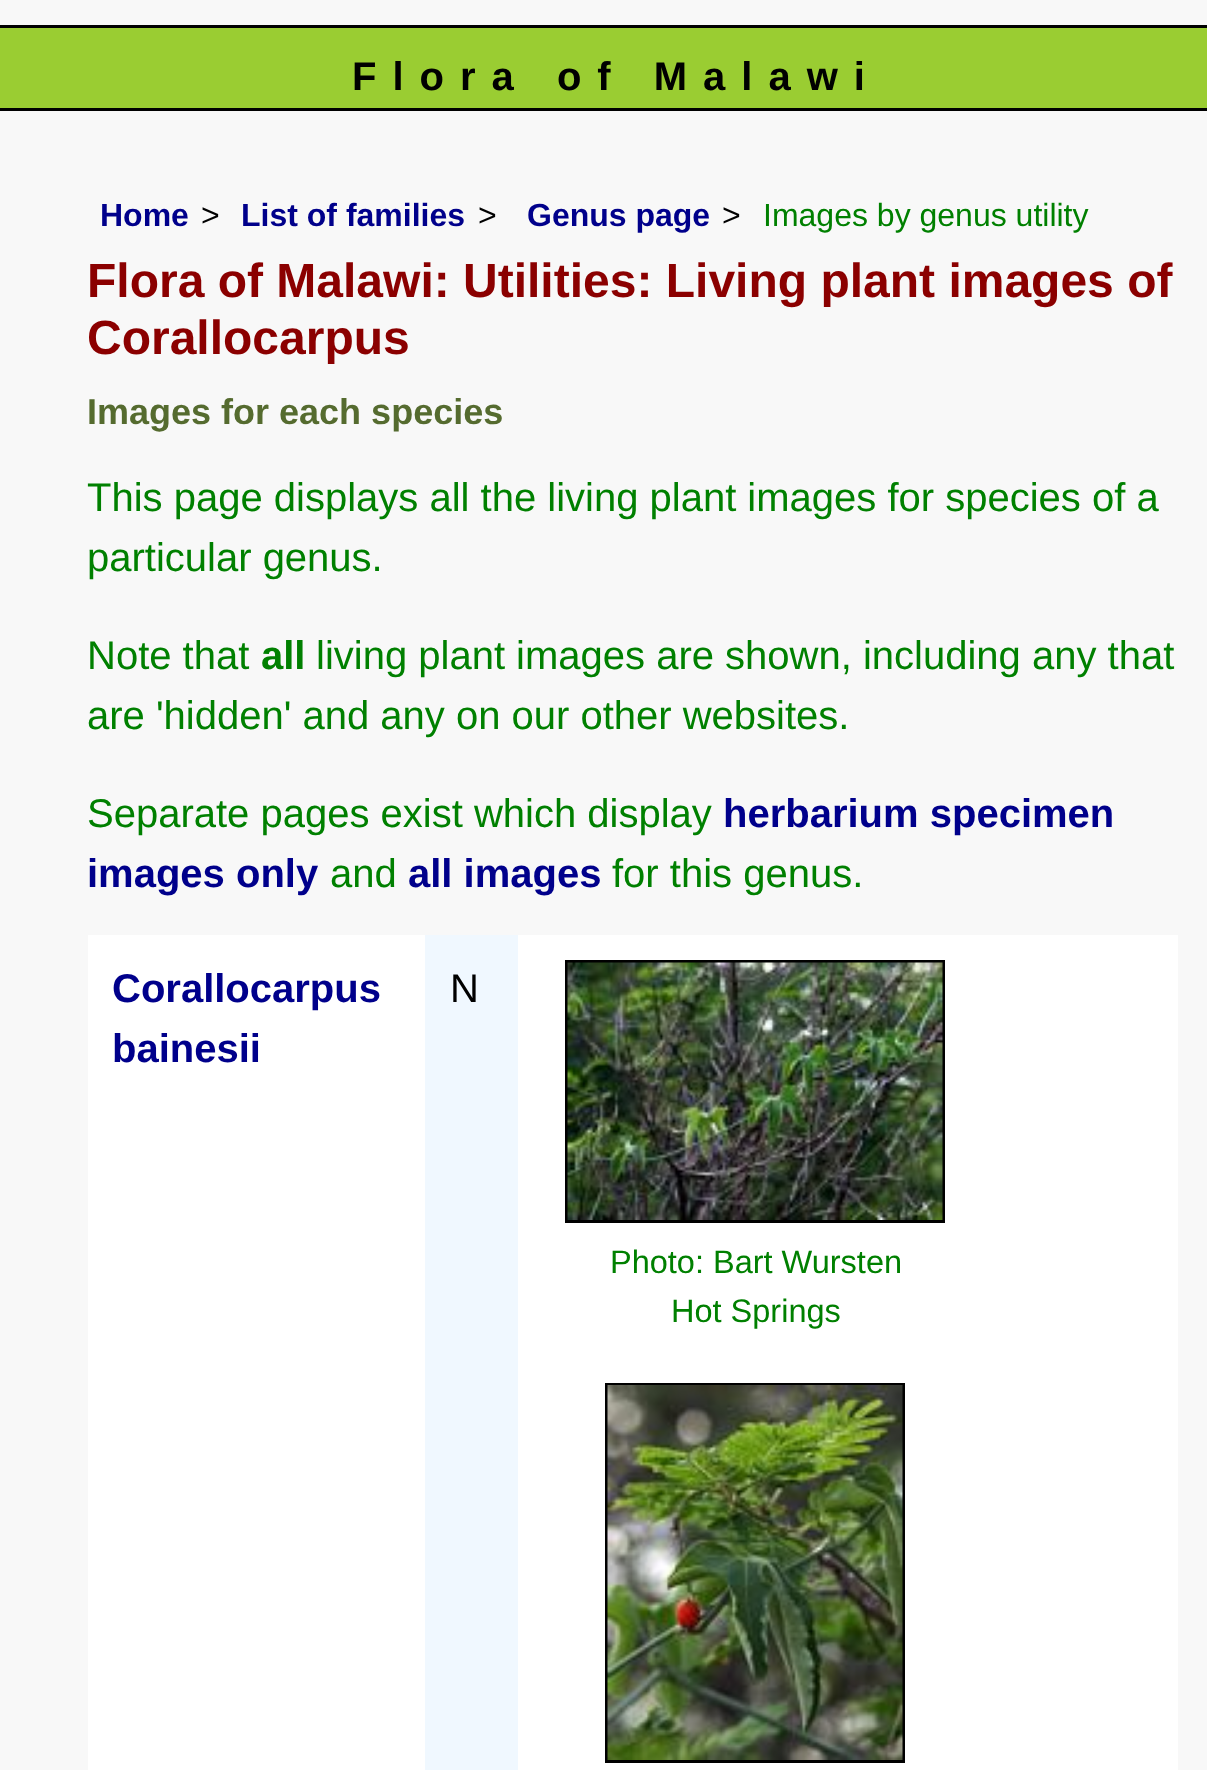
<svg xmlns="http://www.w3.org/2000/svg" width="1207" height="1770">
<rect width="100%" height="100%" fill="#f8f8f8"/>
<rect y="28" width="1207" height="80" fill="#9acd32"/>
<rect y="25" width="1207" height="3" fill="#000"/>
<rect y="108" width="1207" height="3" fill="#000"/>
<text x="352" y="90" style="font-family:Liberation Sans;font-size:40px;font-weight:bold;letter-spacing:16px;fill:#000">Flora of Malawi</text>
<text x="100" y="226" style="font-family:Liberation Sans;font-size:32px;font-weight:bold;fill:#00008b">Home</text>
<text x="201" y="226" style="font-family:Liberation Sans;font-size:32px;fill:#000">&gt;</text>
<text x="241" y="226" style="font-family:Liberation Sans;font-size:32px;font-weight:bold;fill:#00008b">List of families</text>
<text x="478" y="226" style="font-family:Liberation Sans;font-size:32px;fill:#000">&gt;</text>
<text x="527" y="226" style="font-family:Liberation Sans;font-size:32px;font-weight:bold;fill:#00008b">Genus page</text>
<text x="722" y="226" style="font-family:Liberation Sans;font-size:32px;fill:#000">&gt;</text>
<text x="763" y="226" style="font-family:Liberation Sans;font-size:32px;fill:#008000">Images by genus utility</text>
<text x="87" y="297" style="font-family:Liberation Sans;font-size:48px;font-weight:bold;fill:#8b0000">Flora of Malawi: Utilities: Living plant images of</text>
<text x="87" y="354" style="font-family:Liberation Sans;font-size:48px;font-weight:bold;fill:#8b0000">Corallocarpus</text>
<text x="87" y="424" style="font-family:Liberation Sans;font-size:36px;font-weight:bold;fill:#556b2f">Images for each species</text>
<text x="87" y="511" style="font-family:Liberation Sans;font-size:40px;fill:#008000">This page displays all the living plant images for species of a</text>
<text x="87" y="571" style="font-family:Liberation Sans;font-size:40px;fill:#008000">particular genus.</text>
<text x="87" y="669" style="font-family:Liberation Sans;font-size:40px;fill:#008000">Note that</text>
<text x="261" y="669" style="font-family:Liberation Sans;font-size:40px;font-weight:bold;fill:#008000">all</text>
<text x="316" y="669" style="font-family:Liberation Sans;font-size:40px;fill:#008000">living plant images are shown, including any that</text>
<text x="87" y="729" style="font-family:Liberation Sans;font-size:40px;fill:#008000">are 'hidden' and any on our other websites.</text>
<text x="87" y="827" style="font-family:Liberation Sans;font-size:40px;fill:#008000">Separate pages exist which display</text>
<text x="723" y="827" style="font-family:Liberation Sans;font-size:40px;font-weight:bold;fill:#00008b">herbarium specimen</text>
<text x="87" y="887" style="font-family:Liberation Sans;font-size:40px;font-weight:bold;fill:#00008b">images only</text>
<text x="330" y="887" style="font-family:Liberation Sans;font-size:40px;fill:#008000">and</text>
<text x="408" y="887" style="font-family:Liberation Sans;font-size:40px;font-weight:bold;fill:#00008b">all images</text>
<text x="612" y="887" style="font-family:Liberation Sans;font-size:40px;fill:#008000">for this genus.</text>
<rect x="88" y="935" width="1090" height="835" fill="#fff"/>
<text x="112" y="1002" style="font-family:Liberation Sans;font-size:40px;font-weight:bold;fill:#00008b">Corallocarpus</text>
<text x="112" y="1062" style="font-family:Liberation Sans;font-size:40px;font-weight:bold;fill:#00008b">bainesii</text>
<rect x="425" y="935" width="93" height="835" fill="#f0f8ff"/>
<text x="450" y="1002" style="font-family:Liberation Sans;font-size:40px;fill:#000">N</text>
<rect x="566.5" y="961.5" width="377" height="260" fill="none" stroke="#000" stroke-width="3"/>
<image x="567" y="962" width="376" height="258" href="media/1.png"/>
<text x="610" y="1273" style="font-family:Liberation Sans;font-size:32.5px;fill:#008000">Photo: Bart Wursten</text>
<text x="671" y="1322" style="font-family:Liberation Sans;font-size:32.5px;fill:#008000">Hot Springs</text>
<rect x="606.5" y="1384.5" width="297" height="377" fill="none" stroke="#000" stroke-width="3"/>
<image x="607" y="1385" width="296" height="375" href="media/2.png"/>
</svg>
